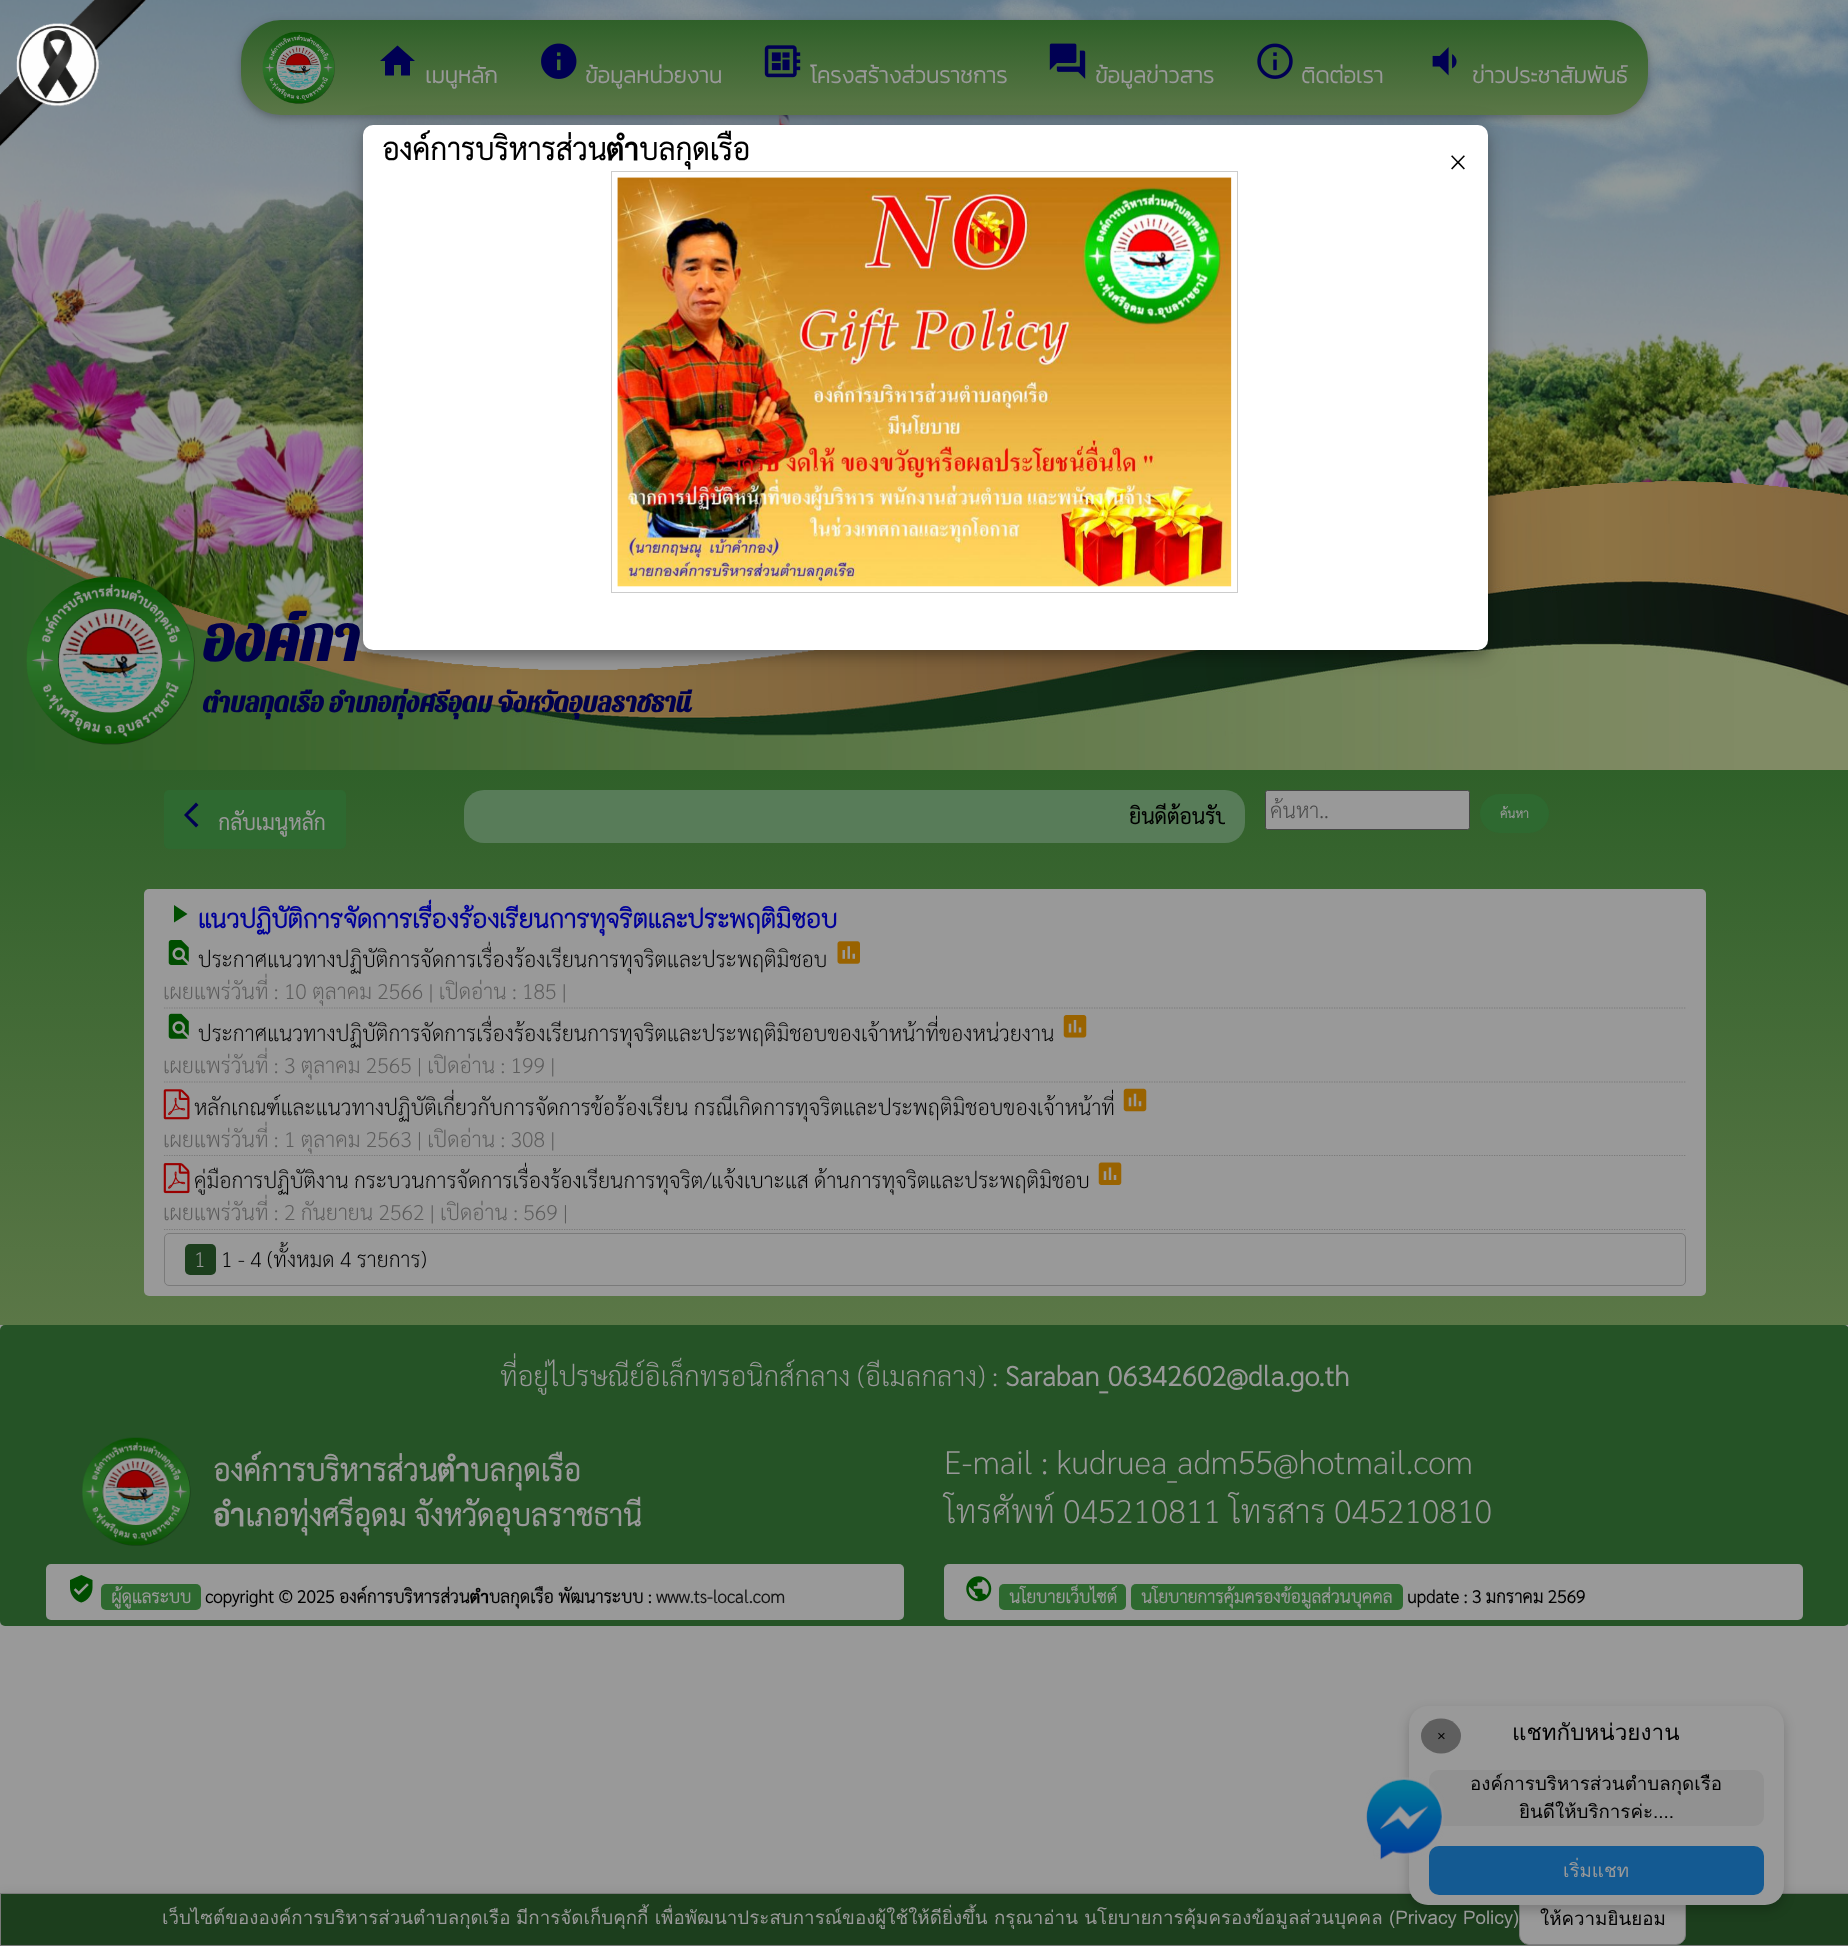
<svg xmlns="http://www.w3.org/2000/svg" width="1848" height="1946">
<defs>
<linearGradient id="g1" gradientUnits="userSpaceOnUse" x1="944" y1="20" x2="944" y2="115"><stop offset="0" stop-color="#2f6029"/><stop offset="1" stop-color="#5b7747"/></linearGradient>
<linearGradient id="g2" gradientUnits="userSpaceOnUse" x1="924" y1="770" x2="924" y2="1325"><stop offset="0" stop-color="#2f6029"/><stop offset="1" stop-color="#5b7747"/></linearGradient>
<clipPath id="clip1"><rect x="484" y="800" width="741" height="33"/></clipPath>
<clipPath id="clip2"><rect x="1270" y="795" width="195" height="28"/></clipPath>
</defs>
<rect width="100%" height="100%" fill="#999"/>
<image x="0" y="0" width="1848" height="635" href="media/8.png"/>
<image x="0" y="0" width="146" height="146" href="media/1.png"/>
<rect x="241" y="23" width="1407" height="95" rx="40" fill="#0000001f" filter="blur(6px)"/>
<rect x="241" y="23" width="1407" height="95" rx="40" fill="#00000029" filter="blur(3px)"/>
<rect x="241" y="20" width="1407" height="95" rx="40" fill="url(#g1)"/>
<image x="262" y="32" width="73" height="72" href="media/2.png"/>
<path d="M394 75.5h-9v-14.5h-5l17.5-15.5l17.5 15.5h-5v14.5h-9v-10.5h-7z" fill="#000053"/>
<text x="425" y="83" style="font-family:Kanit;font-size:22.5px;font-weight:bold;fill:#999">เมนูหลัก</text>
<image x="541" y="43" width="36" height="36" href="media/3.png"/>
<text x="585" y="83" style="font-family:Kanit;font-size:22.5px;font-weight:bold;fill:#999">ข้อมูลหน่วยงาน</text>
<image x="764" y="45" width="37" height="33" href="media/4.png"/>
<text x="810" y="83" style="font-family:Kanit;font-size:22.5px;font-weight:bold;fill:#999">โครงสร้างส่วนราชการ</text>
<image x="1049" y="43" width="37" height="36" href="media/5.png"/>
<text x="1095" y="83" style="font-family:Kanit;font-size:22.5px;font-weight:bold;fill:#999">ข้อมูลข่าวสาร</text>
<image x="1257" y="43" width="36" height="36" href="media/6.png"/>
<text x="1301" y="83" style="font-family:Kanit;font-size:22.5px;font-weight:bold;fill:#999">ติดต่อเรา</text>
<image x="1432" y="47" width="25" height="29" href="media/7.png"/>
<text x="1472" y="83" style="font-family:Kanit;font-size:22.5px;font-weight:bold;fill:#999">ข่าวประชาสัมพันธ์</text>
<image x="0" y="481" width="1848" height="289" href="media/9.png"/>
<image x="26" y="576" width="169" height="169" href="media/10.png"/>
<text x="203" y="661" style="font-family:Pattaya;font-size:62.5px;font-weight:bold;fill:#00004d">องค์กา</text>
<text x="203" y="712" style="font-family:Pattaya;font-size:27.5px;font-weight:bold;fill:#00004d">ตำบลกุดเรือ อำเภอทุ่งศรีอุดม จังหวัดอุบลราชธานี</text>
<rect y="770" width="1848" height="555" fill="url(#g2)"/>
<rect x="164" y="790" width="182" height="59" rx="5" fill="#2e6930"/>
<path d="M198.5 805l-10.5 10l10.5 10l-2.5 2.5l-12-12.5l12-12.5z" fill="#000053"/>
<text x="218" y="830" style="font-family:Sarabun;font-size:21.25px;font-weight:bold;fill:#999">กลับเมนูหลัก</text>
<rect x="464" y="790" width="781" height="53" rx="20" fill="#587c59"/>
<g clip-path="url(#clip1)">
<text x="1129" y="824" style="font-family:Sarabun;font-size:21.25px;font-weight:bold;fill:#000">ยินดีต้อนรับ</text>
</g>
<rect x="1265.5" y="790.5" width="204" height="39" rx="2" fill="#999" stroke="#474747"/>
<g clip-path="url(#clip2)">
<text x="1270" y="818" style="font-family:Sarabun;font-size:21.25px;font-weight:200;fill:#464646">ค้นหา..</text>
</g>
<rect x="1480" y="794" width="69" height="39" rx="19.5" fill="#2e6930"/>
<text x="1500" y="818" style="font-family:Sarabun;font-size:12.5px;font-weight:bold;fill:#999">ค้นหา</text>
<rect x="144" y="889" width="1562" height="407" rx="5" fill="#999"/>
<path d="M174 905l13.5 9l-13.5 8.5z" fill="#004d00"/>
<text x="198" y="928" style="font-family:'K2D';font-size:25px;font-weight:bold;fill:#009">แนวปฏิบัติการจัดการเรื่องร้องเรียนการทุจริตและประพฤติมิชอบ</text>
<image x="168" y="940" width="21" height="25" href="media/11.png"/>
<text x="198" y="967" style="font-family:Sarabun;font-size:21.25px;font-weight:200;fill:#000">ประกาศแนวทางปฏิบัติการจัดการเรื่องร้องเรียนการทุจริตและประพฤติมิชอบ</text>
<image x="837" y="941" width="23" height="23" href="media/12.png"/>
<path d="M164 1008h1522" fill="none" stroke="#7a7a7a" stroke-width="1.2" stroke-dasharray="1.25 1.25"/>
<text x="163" y="999" style="font-family:Sarabun;font-size:21.25px;font-weight:200;fill:#5c5c5c">เผยแพร่วันที่ : 10 ตุลาคม 2566 | เปิดอ่าน : 185 |</text>
<image x="168" y="1013" width="21" height="26" href="media/13.png"/>
<text x="198" y="1041" style="font-family:Sarabun;font-size:21.25px;font-weight:200;fill:#000">ประกาศแนวทางปฏิบัติการจัดการเรื่องร้องเรียนการทุจริตและประพฤติมิชอบของเจ้าหน้าที่ของหน่วยงาน</text>
<image x="1063" y="1015" width="24" height="23" href="media/14.png"/>
<path d="M164 1082h1522" fill="none" stroke="#7a7a7a" stroke-width="1.2" stroke-dasharray="1.25 1.25"/>
<text x="163" y="1073" style="font-family:Sarabun;font-size:21.25px;font-weight:200;fill:#5c5c5c">เผยแพร่วันที่ : 3 ตุลาคม 2565 | เปิดอ่าน : 199 |</text>
<image x="163" y="1089" width="27" height="31" href="media/15.png"/>
<text x="194" y="1115" style="font-family:Sarabun;font-size:21.25px;font-weight:200;fill:#000">หลักเกณฑ์และแนวทางปฏิบัติเกี่ยวกับการจัดการข้อร้องเรียน กรณีเกิดการทุจริตและประพฤติมิชอบของเจ้าหน้าที่</text>
<image x="1123" y="1088" width="24" height="24" href="media/16.png"/>
<path d="M164 1155.5h1522" fill="none" stroke="#7a7a7a" stroke-width="1.2" stroke-dasharray="1.25 1.25"/>
<text x="163" y="1147" style="font-family:Sarabun;font-size:21.25px;font-weight:200;fill:#5c5c5c">เผยแพร่วันที่ : 1 ตุลาคม 2563 | เปิดอ่าน : 308 |</text>
<image x="163" y="1163" width="27" height="31" href="media/17.png"/>
<text x="194" y="1188" style="font-family:Sarabun;font-size:21.25px;font-weight:200;fill:#000">คู่มือการปฏิบัติงาน กระบวนการจัดการเรื่องร้องเรียนการทุจริต/แจ้งเบาะแส ด้านการทุจริตและประพฤติมิชอบ</text>
<image x="1098" y="1162" width="24" height="23" href="media/18.png"/>
<path d="M164 1229.5h1522" fill="none" stroke="#7a7a7a" stroke-width="1.2" stroke-dasharray="1.25 1.25"/>
<text x="163" y="1220" style="font-family:Sarabun;font-size:21.25px;font-weight:200;fill:#5c5c5c">เผยแพร่วันที่ : 2 กันยายน 2562 | เปิดอ่าน : 569 |</text>
<rect x="164.5" y="1233.5" width="1521" height="52" rx="4.5" fill="none" stroke="#7a7a7a"/>
<rect x="185" y="1244" width="31" height="31" rx="5" fill="#1c3e1d"/>
<text x="194" y="1267" style="font-family:Sarabun;font-size:21.25px;font-weight:200;fill:#999">1</text>
<text x="221" y="1267" style="font-family:Sarabun;font-size:21.25px;font-weight:200;fill:#000">1 - 4 (ทั้งหมด 4 รายการ)</text>
<rect y="1325" width="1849" height="301" rx="5" fill="#255326"/>
<text x="500" y="1386" style="font-family:Sarabun;font-size:27.5px;font-weight:200;fill:#999">ที่อยู่ไปรษณีย์อิเล็กทรอนิกส์กลาง (อีเมลกลาง) :</text>
<text x="1005" y="1386" style="font-family:Sarabun;font-size:27.5px;font-weight:bold;fill:#999">Saraban_06342602@dla.go.th</text>
<image x="82" y="1437" width="109" height="109" href="media/19.png"/>
<text x="213" y="1481" style="font-family:Sarabun;font-size:30px;font-weight:bold;fill:#999">องค์การบริหารส่วนตำบลกุดเรือ</text>
<text x="213" y="1526" style="font-family:Sarabun;font-size:30px;font-weight:bold;fill:#999">อำเภอทุ่งศรีอุดม จังหวัดอุบลราชธานี</text>
<text x="944" y="1474" style="font-family:Sarabun;font-size:32.5px;font-weight:200;fill:#999">E-mail : kudruea_adm55@hotmail.com</text>
<text x="944" y="1523" style="font-family:Sarabun;font-size:32.5px;font-weight:200;fill:#999">โทรศัพท์ 045210811 โทรสาร 045210810</text>
<rect x="46" y="1564" width="858" height="56" rx="5" fill="#999"/>
<image x="70" y="1575" width="23" height="28" href="media/20.png"/>
<rect x="101" y="1584" width="100" height="26" rx="5" fill="#2e6930"/>
<text x="111" y="1603" style="font-family:Sarabun;font-size:17.5px;font-weight:bold;fill:#999">ผู้ดูแลระบบ</text>
<text x="205" y="1603" style="font-family:Sarabun;font-size:17.5px;font-weight:bold;fill:#000">copyright © 2025 องค์การบริหารส่วนตำบลกุดเรือ พัฒนาระบบ :</text>
<text x="656" y="1603" style="font-family:Sarabun;font-size:17.5px;font-weight:bold;fill:#141414">www.ts-local.com</text>
<rect x="944" y="1564" width="859" height="56" rx="5" fill="#999"/>
<image x="966" y="1576" width="26" height="26" href="media/21.png"/>
<rect x="999" y="1584" width="127" height="26" rx="5" fill="#2e6930"/>
<text x="1009" y="1603" style="font-family:Sarabun;font-size:17.5px;font-weight:bold;fill:#999">นโยบายเว็บไซต์</text>
<rect x="1131" y="1584" width="272" height="26" rx="5" fill="#2e6930"/>
<text x="1141" y="1603" style="font-family:Sarabun;font-size:17.5px;font-weight:bold;fill:#999">นโยบายการคุ้มครองข้อมูลส่วนบุคคล</text>
<text x="1407" y="1603" style="font-family:Sarabun;font-size:17.5px;font-weight:bold;fill:#000">update : 3 มกราคม 2569</text>
<rect x="363" y="130" width="1125" height="525" rx="10" fill="#00000030" filter="blur(12.5px)"/>
<rect x="363" y="130" width="1125" height="525" rx="10" fill="#00000033" filter="blur(6px)"/>
<rect x="363" y="125" width="1125" height="525" rx="10" fill="#fff"/>
<text x="382" y="160" style="font-family:Sarabun;font-size:30px;font-weight:bold;fill:#000">องค์การบริหารส่วนตำบลกุดเรือ</text>
<text x="1449" y="170" style="font-family:Sarabun;font-size:30px;font-weight:200;fill:#000">×</text>
<rect x="611.5" y="171.5" width="626" height="421" fill="none" stroke="#ccc"/>
<image x="617" y="177" width="615" height="410" href="media/22.png"/>
<rect y="1895" width="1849" height="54" fill="#0000001f" filter="blur(6px)"/>
<rect x="0.5" y="1893.5" width="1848" height="52" fill="#1c3e1d" stroke="#7a7a7a"/>
<rect x="1519.5" y="1894.5" width="166" height="50" rx="9.5" fill="#999" stroke="#7a7a7a"/>
<rect x="1409" y="1711" width="375" height="199" rx="19" fill="#00000033" filter="blur(6px)"/>
<rect x="1409" y="1706" width="375" height="199" rx="19" fill="#999"/>
<ellipse cx="1441" cy="1736" rx="20" ry="17.5" fill="#5f5f5f"/>
<text x="1437" y="1741" style="font-family:Liberation Sans;font-size:15px;fill:#000">×</text>
<text x="1512" y="1740" style="font-family:Loma;font-size:22.5px;fill:#000">แชทกับหน่วยงาน</text>
<rect x="1429" y="1770" width="335" height="56" rx="10" fill="#919191"/>
<text x="1470" y="1790" style="font-family:Loma;font-size:18.75px;fill:#000">องค์การบริหารส่วนตำบลกุดเรือ</text>
<text x="1519" y="1818" style="font-family:Loma;font-size:18.75px;fill:#000">ยินดีให้บริการค่ะ....</text>
<rect x="1429" y="1846" width="335" height="49" rx="10" fill="#145a92"/>
<image x="1366" y="1777" width="78" height="83" href="media/23.png"/>
<text x="1563" y="1877" style="font-family:Loma;font-size:18.75px;fill:#999">เริ่มแชท</text>
<text x="162" y="1924" style="font-family:Loma;font-size:18.75px;fill:#999">เว็บไซต์ขององค์การบริหารส่วนตำบลกุดเรือ</text>
<text x="516" y="1924" style="font-family:Loma;font-size:18.75px;fill:#999">มีการจัดเก็บคุกกี้ เพื่อพัฒนาประสบการณ์ของผู้ใช้ให้ดียิ่งขึ้น กรุณาอ่าน นโยบายการคุ้มครองข้อมูลส่วนบุคคล (Privacy Policy)</text>
<text x="1540" y="1925" style="font-family:Loma;font-size:18.75px;fill:#000">ให้ความยินยอม</text>
</svg>
